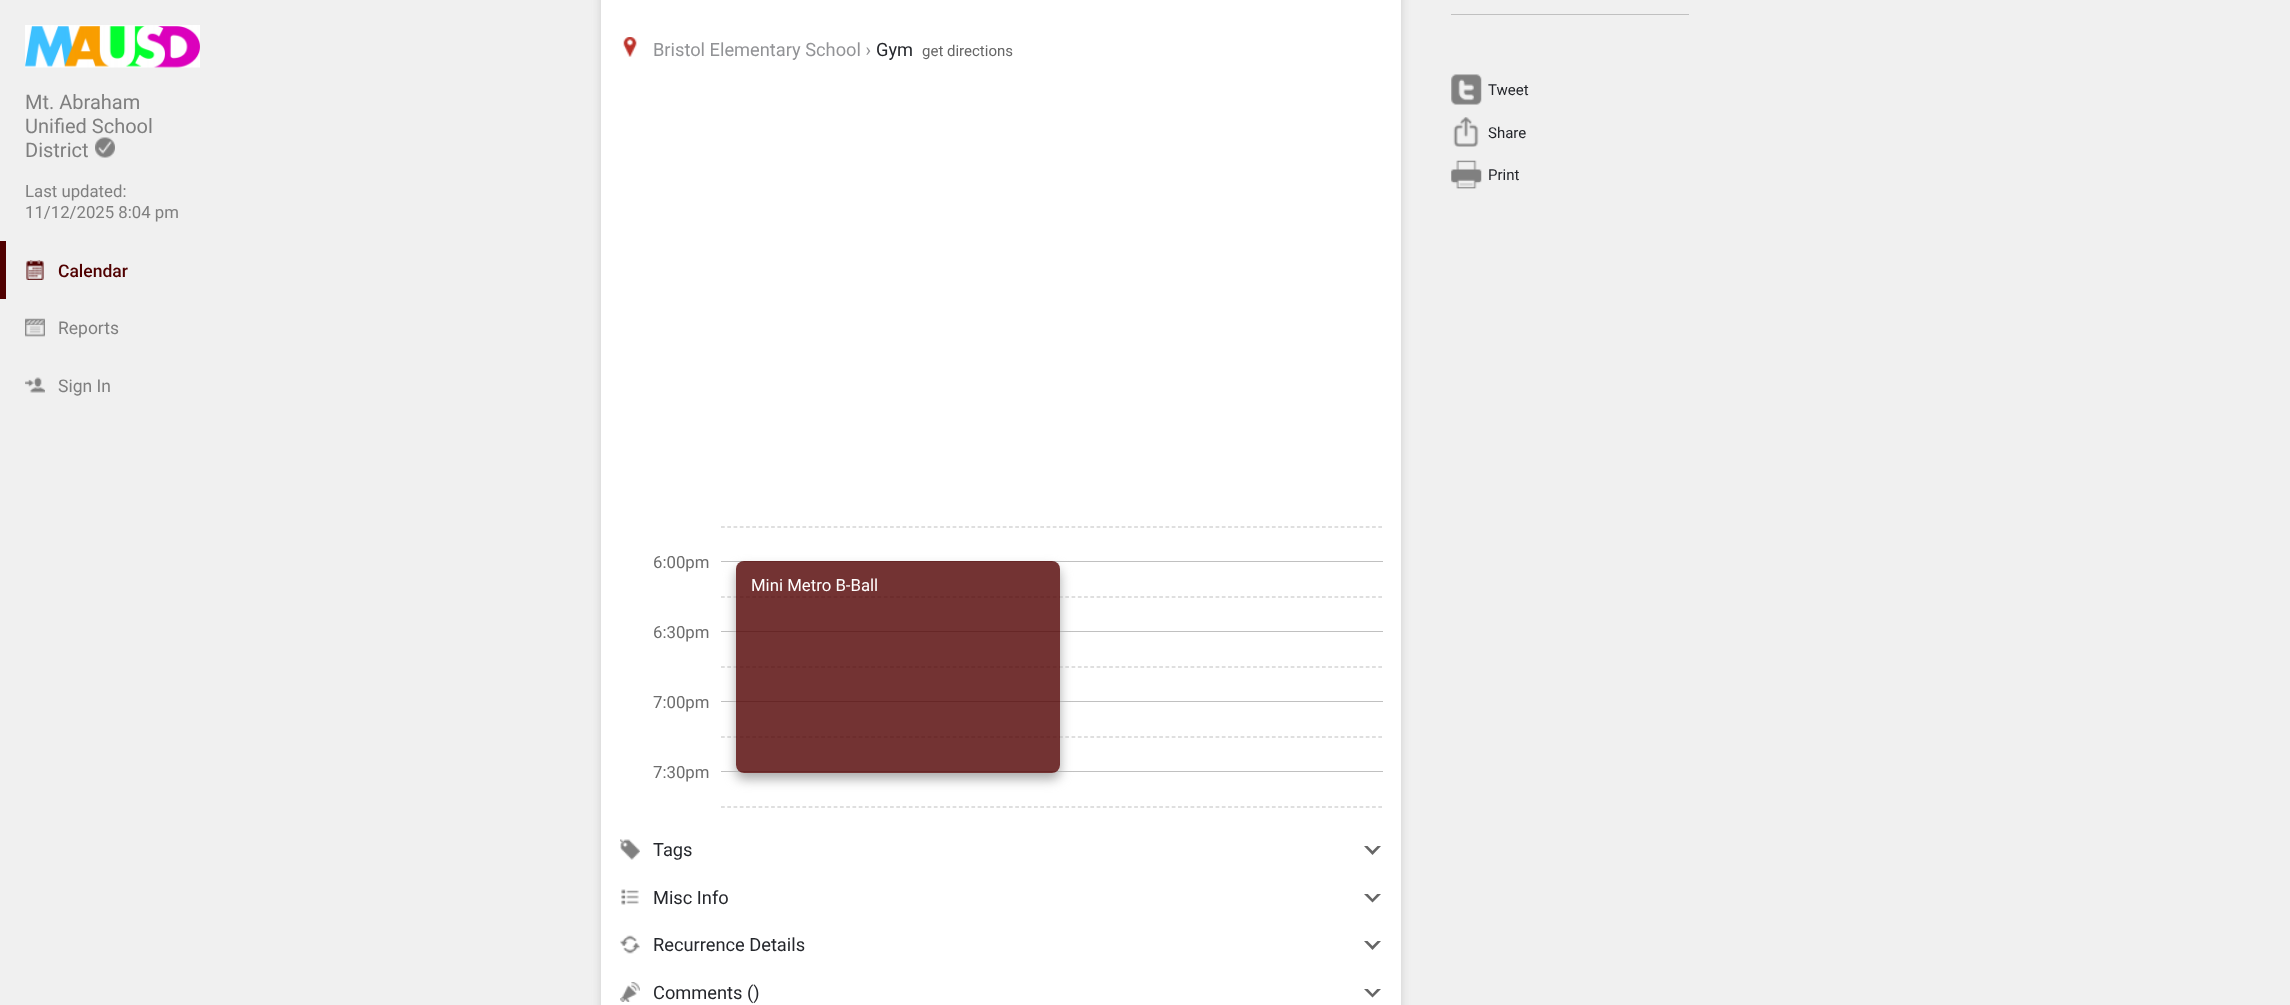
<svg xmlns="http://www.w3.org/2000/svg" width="2290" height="1005">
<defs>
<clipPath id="clip1"><path d="M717 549h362v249h-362zm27 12h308c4.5 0 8 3.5 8 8v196c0 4.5-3.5 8-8 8h-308c-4.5 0-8-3.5-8-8v-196c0-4.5 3.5-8 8-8z" clip-rule="evenodd"/></clipPath>
</defs>
<rect width="100%" height="100%" fill="#f0f0f0"/>
<image x="25" y="25" width="175" height="43" href="media/1.png"/>
<text x="25" y="109" style="font-family:Roboto;font-size:20px;fill:#7f7f7f">Mt. Abraham</text>
<text x="25" y="133" style="font-family:Roboto;font-size:20px;fill:#7f7f7f">Unified School</text>
<text x="25" y="157" style="font-family:Roboto;font-size:20px;fill:#7f7f7f">District</text>
<image x="95" y="137" width="20" height="21" href="media/2.png"/>
<text x="25" y="197" style="font-family:Roboto;font-size:16.75px;fill:#7f7f7f">Last updated:</text>
<text x="25" y="218" style="font-family:Roboto;font-size:16.75px;fill:#7f7f7f">11/12/2025 8:04 pm</text>
<rect y="241" width="6" height="58" fill="#500000"/>
<rect x="26" y="260" width="18" height="20" fill="#500000"/>
<image x="25" y="260" width="20" height="20" href="media/3.png"/>
<text x="58" y="277" style="font-family:Roboto;font-size:17.5px;font-weight:500;fill:#500000">Calendar</text>
<image x="25" y="318" width="20" height="19" href="media/4.png"/>
<text x="58" y="334" style="font-family:Roboto;font-size:17.5px;fill:#7f7f7f">Reports</text>
<image x="25" y="377" width="20" height="16" href="media/5.png"/>
<text x="58" y="392" style="font-family:Roboto;font-size:17.5px;fill:#7f7f7f">Sign In</text>
<rect x="601" y="-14" width="800" height="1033" fill="#ccc" filter="blur(4.5px)"/>
<rect x="601" width="800" height="1005" fill="#fff"/>
<image x="623" y="37" width="14" height="20" href="media/6.png"/>
<text x="653" y="56" style="font-family:Roboto;font-size:18.25px;fill:#929396">Bristol Elementary School ›</text>
<text x="876" y="56" style="font-family:Roboto;font-size:18.25px;fill:#25272c">Gym</text>
<text x="922" y="56" style="font-family:Roboto;font-size:15px;fill:#666">get directions</text>
<text x="653" y="568" style="font-family:Roboto;font-size:16.75px;fill:#6d6d6d">6:00pm</text>
<text x="653" y="638" style="font-family:Roboto;font-size:16.75px;fill:#6d6d6d">6:30pm</text>
<text x="653" y="708" style="font-family:Roboto;font-size:16.75px;fill:#6d6d6d">7:00pm</text>
<text x="653" y="778" style="font-family:Roboto;font-size:16.75px;fill:#6d6d6d">7:30pm</text>
<path d="M721 527h661.5" fill="none" stroke="#c0c0c0" stroke-width="1.2" stroke-dasharray="3.75 2.51"/>
<rect x="721" y="561" width="662" height="1" fill="#c0c0c0"/>
<path d="M721 597h661.5" fill="none" stroke="#c0c0c0" stroke-width="1.2" stroke-dasharray="3.75 2.51"/>
<rect x="721" y="631" width="662" height="1" fill="#c0c0c0"/>
<path d="M721 667h661.5" fill="none" stroke="#c0c0c0" stroke-width="1.2" stroke-dasharray="3.75 2.51"/>
<rect x="721" y="701" width="662" height="1" fill="#c0c0c0"/>
<path d="M721 737h661.5" fill="none" stroke="#c0c0c0" stroke-width="1.2" stroke-dasharray="3.75 2.51"/>
<rect x="721" y="771" width="662" height="1" fill="#c0c0c0"/>
<path d="M721 807h661.5" fill="none" stroke="#c0c0c0" stroke-width="1.2" stroke-dasharray="3.75 2.51"/>
<g clip-path="url(#clip1)">
<rect x="736" y="568" width="324" height="211" rx="8" fill="#aaa" filter="blur(6px)"/>
</g>
<rect x="736" y="561" width="324" height="212" rx="8" fill="#500000cc"/>
<text x="751" y="591" style="font-family:Roboto;font-size:16.75px;fill:#fff">Mini Metro B-Ball</text>
<image x="620" y="839" width="20" height="21" href="media/7.png"/>
<text x="653" y="856" style="font-family:Roboto;font-size:18.25px;fill:#25272c">Tags</text>
<path d="M1364 846h17l-8.5 9z" fill="#666"/>
<path d="M1364 842.5h17l-8.5 8.5z" fill="#fff"/>
<image x="621" y="889" width="18" height="16" href="media/8.png"/>
<text x="653" y="904" style="font-family:Roboto;font-size:18.25px;fill:#25272c">Misc Info</text>
<path d="M1364 894h17l-8.5 8.5z" fill="#666"/>
<path d="M1364 890h17l-8.5 9z" fill="#fff"/>
<image x="620" y="935" width="20" height="19" href="media/9.png"/>
<text x="653" y="951" style="font-family:Roboto;font-size:18.25px;fill:#25272c">Recurrence Details</text>
<path d="M1364 941h17l-8.5 9z" fill="#666"/>
<path d="M1364 937.5h17l-8.5 8.5z" fill="#fff"/>
<image x="620" y="982" width="20" height="20" href="media/10.png"/>
<text x="653" y="999" style="font-family:Roboto;font-size:18.25px;fill:#25272c">Comments ()</text>
<path d="M1364 989h17l-8.5 8.5z" fill="#666"/>
<path d="M1364 985h17l-8.5 9z" fill="#fff"/>
<rect x="1451" y="14" width="238" height="1" fill="#c0c0c0"/>
<image x="1451" y="74" width="31" height="31" href="media/11.png"/>
<text x="1488" y="95" style="font-family:Roboto;font-size:15px;fill:#25272c">Tweet</text>
<image x="1453" y="117" width="26" height="30" href="media/12.png"/>
<text x="1488" y="138" style="font-family:Roboto;font-size:15px;fill:#25272c">Share</text>
<image x="1451" y="160" width="31" height="29" href="media/13.png"/>
<text x="1488" y="180" style="font-family:Roboto;font-size:15px;fill:#25272c">Print</text>
</svg>
